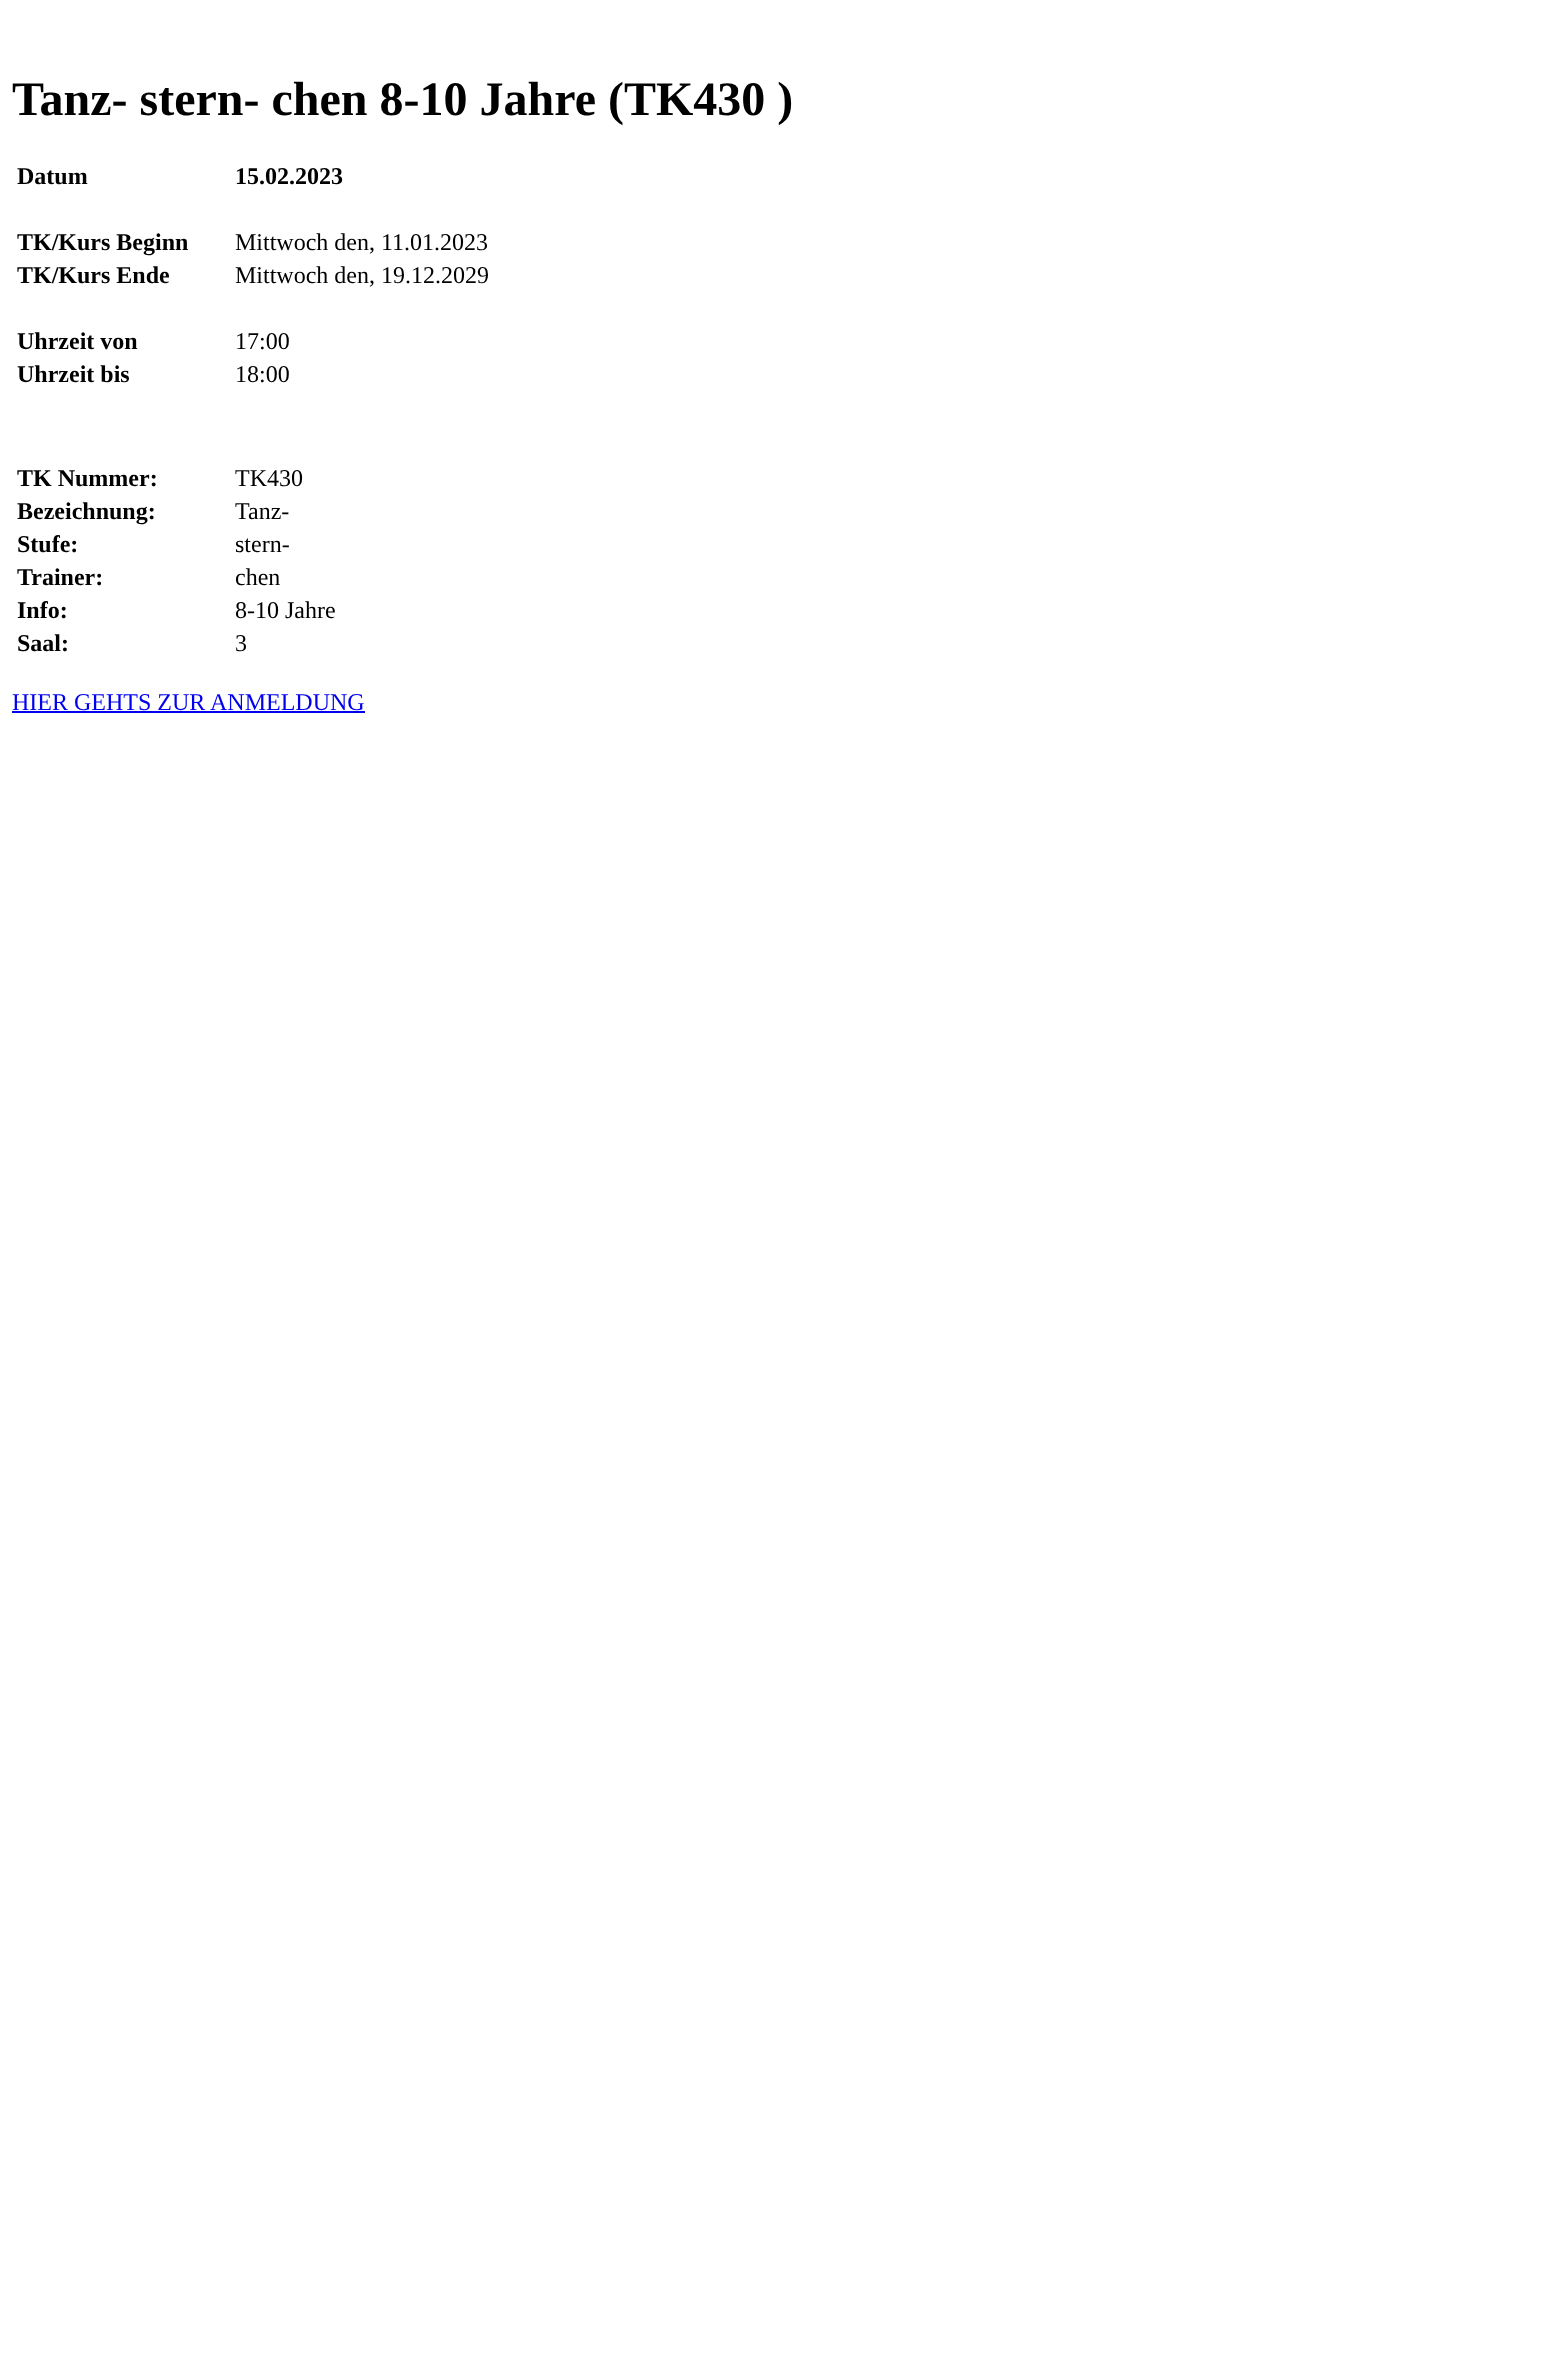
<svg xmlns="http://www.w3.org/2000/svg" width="1560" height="2365">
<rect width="100%" height="100%" fill="#fff"/>
<text x="12" y="115" style="font-family:Liberation Serif;font-size:48px;font-weight:bold;fill:#000">Tanz- stern- chen 8-10 Jahre (TK430 )</text>
<text x="17" y="184" style="font-family:Liberation Serif;font-size:24px;font-weight:bold;fill:#000">Datum</text>
<text x="235" y="184" style="font-family:Liberation Serif;font-size:24px;font-weight:bold;fill:#000">15.02.2023</text>
<text x="17" y="250" style="font-family:Liberation Serif;font-size:24px;font-weight:bold;fill:#000">TK/Kurs Beginn</text>
<text x="235" y="250" style="font-family:Liberation Serif;font-size:24px;fill:#000">Mittwoch den, 11.01.2023</text>
<text x="17" y="283" style="font-family:Liberation Serif;font-size:24px;font-weight:bold;fill:#000">TK/Kurs Ende</text>
<text x="235" y="283" style="font-family:Liberation Serif;font-size:24px;fill:#000">Mittwoch den, 19.12.2029</text>
<text x="17" y="349" style="font-family:Liberation Serif;font-size:24px;font-weight:bold;fill:#000">Uhrzeit von</text>
<text x="235" y="349" style="font-family:Liberation Serif;font-size:24px;fill:#000">17:00</text>
<text x="17" y="382" style="font-family:Liberation Serif;font-size:24px;font-weight:bold;fill:#000">Uhrzeit bis</text>
<text x="235" y="382" style="font-family:Liberation Serif;font-size:24px;fill:#000">18:00</text>
<text x="17" y="486" style="font-family:Liberation Serif;font-size:24px;font-weight:bold;fill:#000">TK Nummer:</text>
<text x="235" y="486" style="font-family:Liberation Serif;font-size:24px;fill:#000">TK430</text>
<text x="17" y="519" style="font-family:Liberation Serif;font-size:24px;font-weight:bold;fill:#000">Bezeichnung:</text>
<text x="235" y="519" style="font-family:Liberation Serif;font-size:24px;fill:#000">Tanz-</text>
<text x="17" y="552" style="font-family:Liberation Serif;font-size:24px;font-weight:bold;fill:#000">Stufe:</text>
<text x="235" y="552" style="font-family:Liberation Serif;font-size:24px;fill:#000">stern-</text>
<text x="17" y="585" style="font-family:Liberation Serif;font-size:24px;font-weight:bold;fill:#000">Trainer:</text>
<text x="235" y="585" style="font-family:Liberation Serif;font-size:24px;fill:#000">chen</text>
<text x="17" y="618" style="font-family:Liberation Serif;font-size:24px;font-weight:bold;fill:#000">Info:</text>
<text x="235" y="618" style="font-family:Liberation Serif;font-size:24px;fill:#000">8-10 Jahre</text>
<text x="17" y="651" style="font-family:Liberation Serif;font-size:24px;font-weight:bold;fill:#000">Saal:</text>
<text x="235" y="651" style="font-family:Liberation Serif;font-size:24px;fill:#000">3</text>
<text x="12" y="710" style="font-family:Liberation Serif;font-size:24px;fill:#00e">HIER GEHTS ZUR ANMELDUNG</text>
<rect x="12" y="711" width="353" height="2" fill="#00e"/>
</svg>
